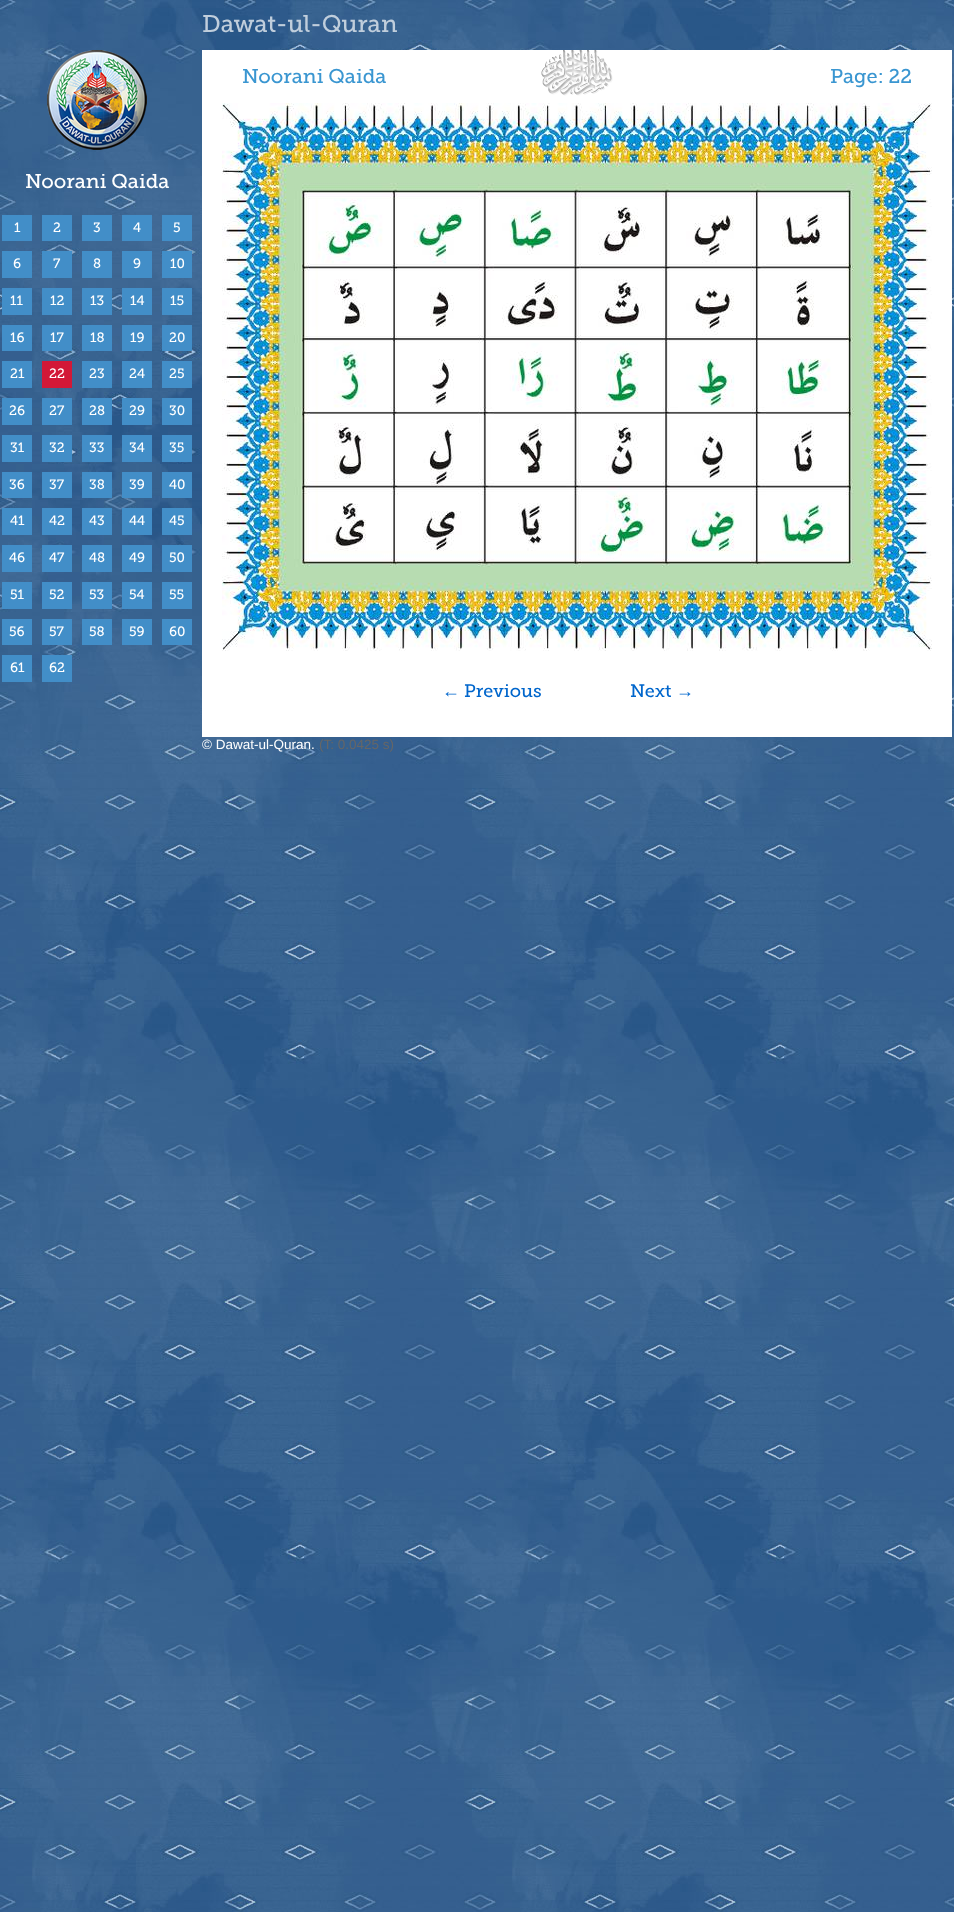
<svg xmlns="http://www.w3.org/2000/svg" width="954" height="1912">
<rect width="100%" height="100%" fill="#fff"/>
<image x="0" y="0" width="954" height="1912" href="media/1.png"/>
<text x="202" y="32" style="font-family:Museo Slab;font-size:24px;fill:#c0cedc">Dawat-ul-Quran</text>
<image x="47" y="50" width="100" height="100" href="media/2.png"/>
<text x="25" y="188" style="font-family:Museo Slab;font-size:20px;fill:#fff">Noorani Qaida</text>
<rect x="2" y="215" width="30" height="26" fill="#428ec8"/>
<text x="14" y="232" style="font-family:Museo Slab;font-size:13.5px;fill:#fff">1</text>
<rect x="42" y="215" width="30" height="26" fill="#428ec8"/>
<text x="53" y="232" style="font-family:Museo Slab;font-size:13.5px;fill:#fff">2</text>
<rect x="82" y="215" width="30" height="26" fill="#428ec8"/>
<text x="93" y="232" style="font-family:Museo Slab;font-size:13.5px;fill:#fff">3</text>
<rect x="122" y="215" width="30" height="26" fill="#428ec8"/>
<text x="133" y="232" style="font-family:Museo Slab;font-size:13.5px;fill:#fff">4</text>
<rect x="162" y="215" width="30" height="26" fill="#428ec8"/>
<text x="173" y="232" style="font-family:Museo Slab;font-size:13.5px;fill:#fff">5</text>
<rect x="2" y="251" width="30" height="27" fill="#428ec8"/>
<text x="13" y="268" style="font-family:Museo Slab;font-size:13.5px;fill:#fff">6</text>
<rect x="42" y="251" width="30" height="27" fill="#428ec8"/>
<text x="53" y="268" style="font-family:Museo Slab;font-size:13.5px;fill:#fff">7</text>
<rect x="82" y="251" width="30" height="27" fill="#428ec8"/>
<text x="93" y="268" style="font-family:Museo Slab;font-size:13.5px;fill:#fff">8</text>
<rect x="122" y="251" width="30" height="27" fill="#428ec8"/>
<text x="133" y="268" style="font-family:Museo Slab;font-size:13.5px;fill:#fff">9</text>
<rect x="162" y="251" width="30" height="27" fill="#428ec8"/>
<text x="170" y="268" style="font-family:Museo Slab;font-size:13.5px;fill:#fff">10</text>
<rect x="2" y="288" width="30" height="27" fill="#428ec8"/>
<text x="10" y="305" style="font-family:Museo Slab;font-size:13.5px;fill:#fff">11</text>
<rect x="42" y="288" width="30" height="27" fill="#428ec8"/>
<text x="50" y="305" style="font-family:Museo Slab;font-size:13.5px;fill:#fff">12</text>
<rect x="82" y="288" width="30" height="27" fill="#428ec8"/>
<text x="90" y="305" style="font-family:Museo Slab;font-size:13.5px;fill:#fff">13</text>
<rect x="122" y="288" width="30" height="27" fill="#428ec8"/>
<text x="130" y="305" style="font-family:Museo Slab;font-size:13.5px;fill:#fff">14</text>
<rect x="162" y="288" width="30" height="27" fill="#428ec8"/>
<text x="170" y="305" style="font-family:Museo Slab;font-size:13.5px;fill:#fff">15</text>
<rect x="2" y="325" width="30" height="26" fill="#428ec8"/>
<text x="10" y="342" style="font-family:Museo Slab;font-size:13.5px;fill:#fff">16</text>
<rect x="42" y="325" width="30" height="26" fill="#428ec8"/>
<text x="50" y="342" style="font-family:Museo Slab;font-size:13.5px;fill:#fff">17</text>
<rect x="82" y="325" width="30" height="26" fill="#428ec8"/>
<text x="90" y="342" style="font-family:Museo Slab;font-size:13.5px;fill:#fff">18</text>
<rect x="122" y="325" width="30" height="26" fill="#428ec8"/>
<text x="130" y="342" style="font-family:Museo Slab;font-size:13.5px;fill:#fff">19</text>
<rect x="162" y="325" width="30" height="26" fill="#428ec8"/>
<text x="169" y="342" style="font-family:Museo Slab;font-size:13.5px;fill:#fff">20</text>
<rect x="2" y="361" width="30" height="27" fill="#428ec8"/>
<text x="10" y="378" style="font-family:Museo Slab;font-size:13.5px;fill:#fff">21</text>
<rect x="42" y="361" width="30" height="27" fill="#d31837"/>
<text x="49" y="378" style="font-family:Museo Slab;font-size:13.5px;fill:#fff">22</text>
<rect x="82" y="361" width="30" height="27" fill="#428ec8"/>
<text x="89" y="378" style="font-family:Museo Slab;font-size:13.5px;fill:#fff">23</text>
<rect x="122" y="361" width="30" height="27" fill="#428ec8"/>
<text x="129" y="378" style="font-family:Museo Slab;font-size:13.5px;fill:#fff">24</text>
<rect x="162" y="361" width="30" height="27" fill="#428ec8"/>
<text x="169" y="378" style="font-family:Museo Slab;font-size:13.5px;fill:#fff">25</text>
<rect x="2" y="398" width="30" height="27" fill="#428ec8"/>
<text x="9" y="415" style="font-family:Museo Slab;font-size:13.5px;fill:#fff">26</text>
<rect x="42" y="398" width="30" height="27" fill="#428ec8"/>
<text x="49" y="415" style="font-family:Museo Slab;font-size:13.5px;fill:#fff">27</text>
<rect x="82" y="398" width="30" height="27" fill="#428ec8"/>
<text x="89" y="415" style="font-family:Museo Slab;font-size:13.5px;fill:#fff">28</text>
<rect x="122" y="398" width="30" height="27" fill="#428ec8"/>
<text x="129" y="415" style="font-family:Museo Slab;font-size:13.5px;fill:#fff">29</text>
<rect x="162" y="398" width="30" height="27" fill="#428ec8"/>
<text x="169" y="415" style="font-family:Museo Slab;font-size:13.5px;fill:#fff">30</text>
<rect x="2" y="435" width="30" height="27" fill="#428ec8"/>
<text x="10" y="452" style="font-family:Museo Slab;font-size:13.5px;fill:#fff">31</text>
<rect x="42" y="435" width="30" height="27" fill="#428ec8"/>
<text x="49" y="452" style="font-family:Museo Slab;font-size:13.5px;fill:#fff">32</text>
<rect x="82" y="435" width="30" height="27" fill="#428ec8"/>
<text x="89" y="452" style="font-family:Museo Slab;font-size:13.5px;fill:#fff">33</text>
<rect x="122" y="435" width="30" height="27" fill="#428ec8"/>
<text x="129" y="452" style="font-family:Museo Slab;font-size:13.5px;fill:#fff">34</text>
<rect x="162" y="435" width="30" height="27" fill="#428ec8"/>
<text x="169" y="452" style="font-family:Museo Slab;font-size:13.5px;fill:#fff">35</text>
<rect x="2" y="472" width="30" height="26" fill="#428ec8"/>
<text x="9" y="489" style="font-family:Museo Slab;font-size:13.5px;fill:#fff">36</text>
<rect x="42" y="472" width="30" height="26" fill="#428ec8"/>
<text x="49" y="489" style="font-family:Museo Slab;font-size:13.5px;fill:#fff">37</text>
<rect x="82" y="472" width="30" height="26" fill="#428ec8"/>
<text x="89" y="489" style="font-family:Museo Slab;font-size:13.5px;fill:#fff">38</text>
<rect x="122" y="472" width="30" height="26" fill="#428ec8"/>
<text x="129" y="489" style="font-family:Museo Slab;font-size:13.5px;fill:#fff">39</text>
<rect x="162" y="472" width="30" height="26" fill="#428ec8"/>
<text x="169" y="489" style="font-family:Museo Slab;font-size:13.5px;fill:#fff">40</text>
<rect x="2" y="508" width="30" height="27" fill="#428ec8"/>
<text x="10" y="525" style="font-family:Museo Slab;font-size:13.5px;fill:#fff">41</text>
<rect x="42" y="508" width="30" height="27" fill="#428ec8"/>
<text x="49" y="525" style="font-family:Museo Slab;font-size:13.5px;fill:#fff">42</text>
<rect x="82" y="508" width="30" height="27" fill="#428ec8"/>
<text x="89" y="525" style="font-family:Museo Slab;font-size:13.5px;fill:#fff">43</text>
<rect x="122" y="508" width="30" height="27" fill="#428ec8"/>
<text x="129" y="525" style="font-family:Museo Slab;font-size:13.5px;fill:#fff">44</text>
<rect x="162" y="508" width="30" height="27" fill="#428ec8"/>
<text x="169" y="525" style="font-family:Museo Slab;font-size:13.5px;fill:#fff">45</text>
<rect x="2" y="545" width="30" height="27" fill="#428ec8"/>
<text x="9" y="562" style="font-family:Museo Slab;font-size:13.5px;fill:#fff">46</text>
<rect x="42" y="545" width="30" height="27" fill="#428ec8"/>
<text x="49" y="562" style="font-family:Museo Slab;font-size:13.5px;fill:#fff">47</text>
<rect x="82" y="545" width="30" height="27" fill="#428ec8"/>
<text x="89" y="562" style="font-family:Museo Slab;font-size:13.5px;fill:#fff">48</text>
<rect x="122" y="545" width="30" height="27" fill="#428ec8"/>
<text x="129" y="562" style="font-family:Museo Slab;font-size:13.5px;fill:#fff">49</text>
<rect x="162" y="545" width="30" height="27" fill="#428ec8"/>
<text x="169" y="562" style="font-family:Museo Slab;font-size:13.5px;fill:#fff">50</text>
<rect x="2" y="582" width="30" height="27" fill="#428ec8"/>
<text x="10" y="599" style="font-family:Museo Slab;font-size:13.5px;fill:#fff">51</text>
<rect x="42" y="582" width="30" height="27" fill="#428ec8"/>
<text x="49" y="599" style="font-family:Museo Slab;font-size:13.5px;fill:#fff">52</text>
<rect x="82" y="582" width="30" height="27" fill="#428ec8"/>
<text x="89" y="599" style="font-family:Museo Slab;font-size:13.5px;fill:#fff">53</text>
<rect x="122" y="582" width="30" height="27" fill="#428ec8"/>
<text x="129" y="599" style="font-family:Museo Slab;font-size:13.5px;fill:#fff">54</text>
<rect x="162" y="582" width="30" height="27" fill="#428ec8"/>
<text x="169" y="599" style="font-family:Museo Slab;font-size:13.5px;fill:#fff">55</text>
<rect x="2" y="619" width="30" height="26" fill="#428ec8"/>
<text x="9" y="636" style="font-family:Museo Slab;font-size:13.5px;fill:#fff">56</text>
<rect x="42" y="619" width="30" height="26" fill="#428ec8"/>
<text x="49" y="636" style="font-family:Museo Slab;font-size:13.5px;fill:#fff">57</text>
<rect x="82" y="619" width="30" height="26" fill="#428ec8"/>
<text x="89" y="636" style="font-family:Museo Slab;font-size:13.5px;fill:#fff">58</text>
<rect x="122" y="619" width="30" height="26" fill="#428ec8"/>
<text x="129" y="636" style="font-family:Museo Slab;font-size:13.5px;fill:#fff">59</text>
<rect x="162" y="619" width="30" height="26" fill="#428ec8"/>
<text x="169" y="636" style="font-family:Museo Slab;font-size:13.5px;fill:#fff">60</text>
<rect x="2" y="655" width="30" height="27" fill="#428ec8"/>
<text x="10" y="672" style="font-family:Museo Slab;font-size:13.5px;fill:#fff">61</text>
<rect x="42" y="655" width="30" height="27" fill="#428ec8"/>
<text x="49" y="672" style="font-family:Museo Slab;font-size:13.5px;fill:#fff">62</text>
<rect x="202" y="50" width="750" height="687" fill="#fff"/>
<image x="541" y="50" width="72" height="46" href="media/3.png"/>
<text x="242" y="83" style="font-family:Museo Slab;font-size:20px;fill:#3a96d1">Noorani Qaida</text>
<text x="830" y="83" style="font-family:Museo Slab;font-size:20px;fill:#3a96d1">Page: 22</text>
<image x="222" y="103" width="710" height="548" href="media/4.png"/>
<text x="442" y="697" style="font-family:Liberation Serif;font-size:18px;fill:#06c">←</text>
<text x="464" y="697" style="font-family:Museo Slab;font-size:18px;fill:#06c">Previous</text>
<text x="630" y="697" style="font-family:Museo Slab;font-size:18px;fill:#06c">Next</text>
<text x="676" y="697" style="font-family:Liberation Serif;font-size:18px;fill:#06c">→</text>
<text x="202" y="749" style="font-family:Liberation Sans;font-size:13.5px;fill:#fff">© Dawat-ul-Quran.</text>
<text x="319" y="749" style="font-family:Liberation Sans;font-size:13.5px;fill:#666">(T: 0.0425 s)</text>
</svg>
